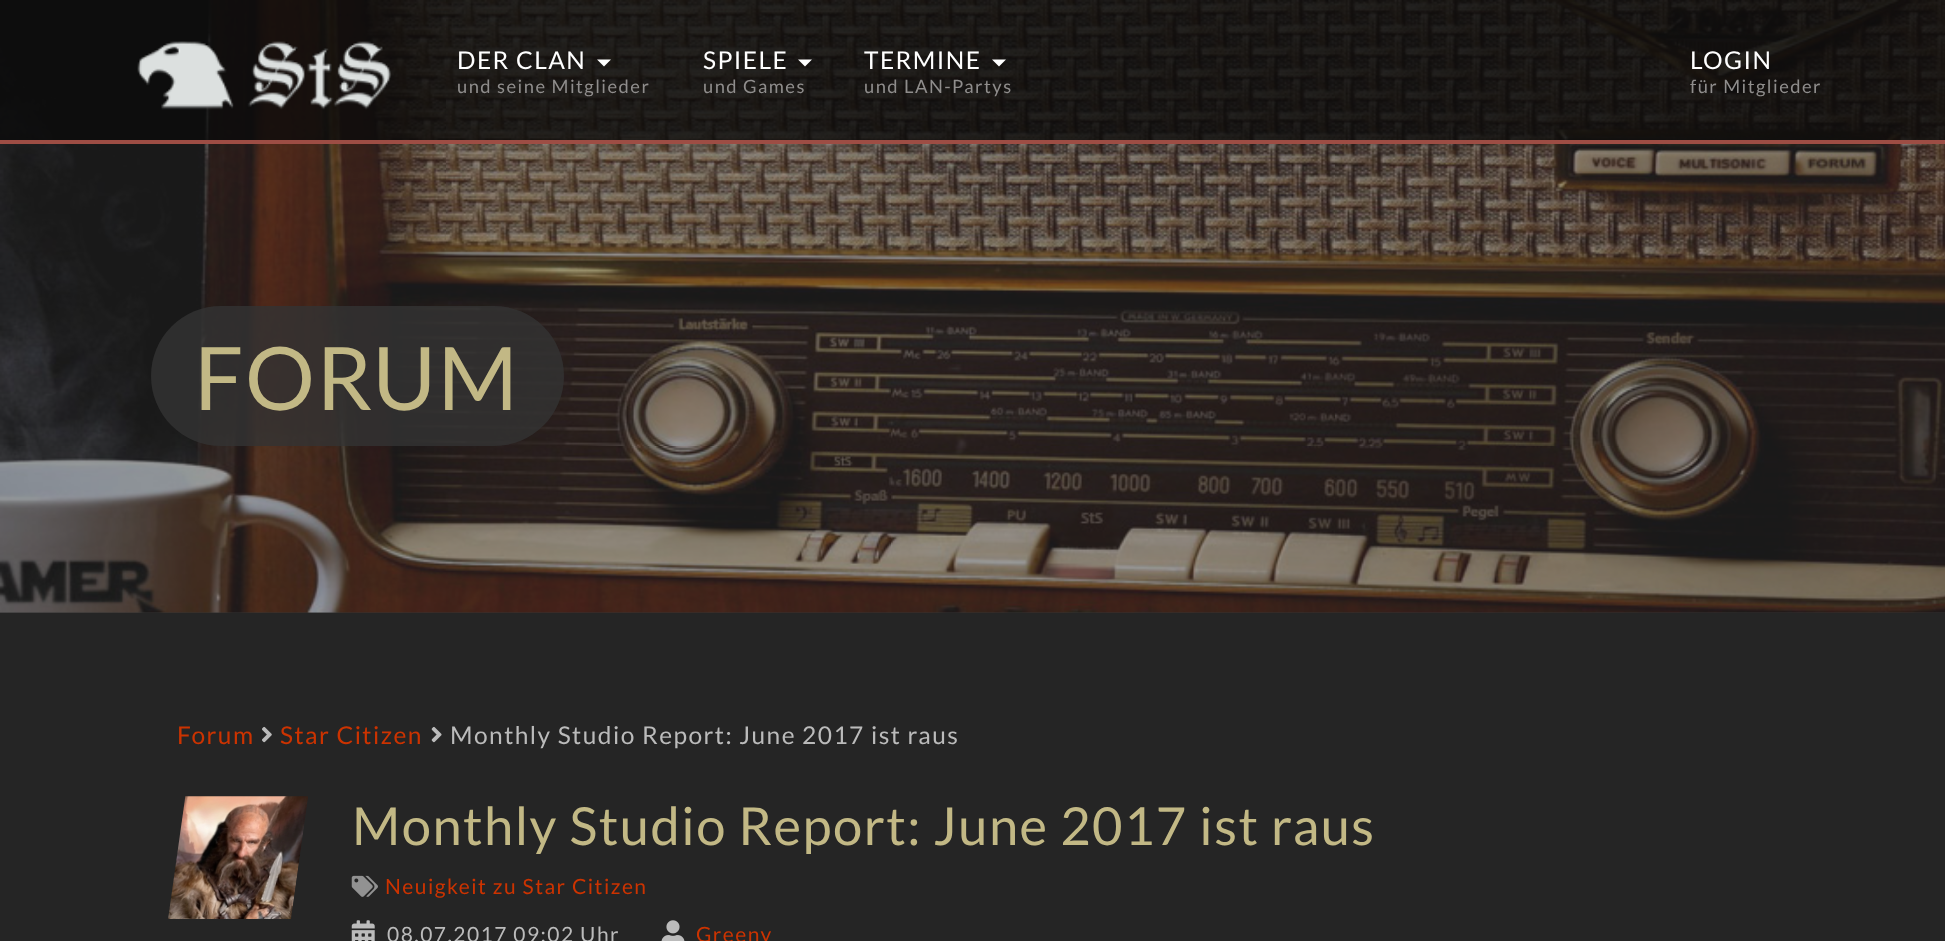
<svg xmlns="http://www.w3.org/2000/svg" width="1945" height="941">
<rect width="100%" height="100%" fill="#252525"/>
<rect width="1945" height="613" fill="#333"/>
<image x="0" y="0" width="1945" height="613" href="media/2.png"/>
<rect width="1945" height="140" fill="#0a0a0acc"/>
<rect y="140" width="1945" height="4" fill="#9d4d44"/>
<image x="137" y="41" width="255" height="69" href="media/1.png"/>
<text x="457" y="69" style="font-family:Lato;font-size:24.5px;letter-spacing:1.45px;fill:#fff">DER CLAN</text>
<path d="M597 59.5h14l-7 7z" fill="#fff"/>
<text x="457" y="93" style="font-family:Lato;font-size:18.4px;letter-spacing:1.45px;fill:#8f8d8c">und seine Mitglieder</text>
<text x="703" y="69" style="font-family:Lato;font-size:24.5px;letter-spacing:1.45px;fill:#fff">SPIELE</text>
<path d="M798 59.5h14l-7 7z" fill="#fff"/>
<text x="703" y="93" style="font-family:Lato;font-size:18.4px;letter-spacing:1.45px;fill:#8f8d8c">und Games</text>
<text x="864" y="69" style="font-family:Lato;font-size:24.5px;letter-spacing:1.45px;fill:#fff">TERMINE</text>
<path d="M992 59.5h14l-7 7z" fill="#fff"/>
<text x="864" y="93" style="font-family:Lato;font-size:18.4px;letter-spacing:1.45px;fill:#8f8d8c">und LAN-Partys</text>
<text x="1690" y="69" style="font-family:Lato;font-size:24.5px;letter-spacing:1.45px;fill:#fff">LOGIN</text>
<text x="1690" y="93" style="font-family:Lato;font-size:18.4px;letter-spacing:1.45px;fill:#8f8d8c">für Mitglieder</text>
<rect x="151" y="306" width="413" height="140" rx="70" fill="#333333cc"/>
<text x="194" y="410" style="font-family:Lato;font-size:87.5px;letter-spacing:1.45px;fill:#c2b885">FORUM</text>
<text x="177" y="744" style="font-family:Lato;font-size:24.5px;letter-spacing:1.45px;fill:#c30">Forum</text>
<image x="262" y="726" width="10" height="17" href="media/3.png"/>
<text x="280" y="744" style="font-family:Lato;font-size:24.5px;letter-spacing:1.45px;fill:#c30">Star Citizen</text>
<image x="431" y="726" width="11" height="17" href="media/4.png"/>
<text x="450" y="744" style="font-family:Lato;font-size:24.5px;letter-spacing:1.45px;fill:#bbb">Monthly Studio Report: June 2017 ist raus</text>
<image x="168" y="796" width="140" height="123" href="media/5.png"/>
<text x="352" y="845" style="font-family:Lato;font-size:52.5px;letter-spacing:1.45px;fill:#c2b885">Monthly Studio Report: June 2017 ist raus</text>
<image x="351" y="875" width="27" height="22" href="media/6.png"/>
<text x="385" y="894" style="font-family:Lato;font-size:21px;letter-spacing:1.45px;fill:#c30">Neuigkeit zu Star Citizen</text>
<image x="351" y="920" width="24" height="21" href="media/7.png"/>
<text x="387" y="942" style="font-family:Lato;font-size:21px;letter-spacing:1.45px;fill:#bbb">08.07.2017 09:02 Uhr</text>
<image x="661" y="920" width="24" height="21" href="media/8.png"/>
<text x="696" y="942" style="font-family:Lato;font-size:21px;letter-spacing:1.45px;fill:#c30">Greeny</text>
</svg>
